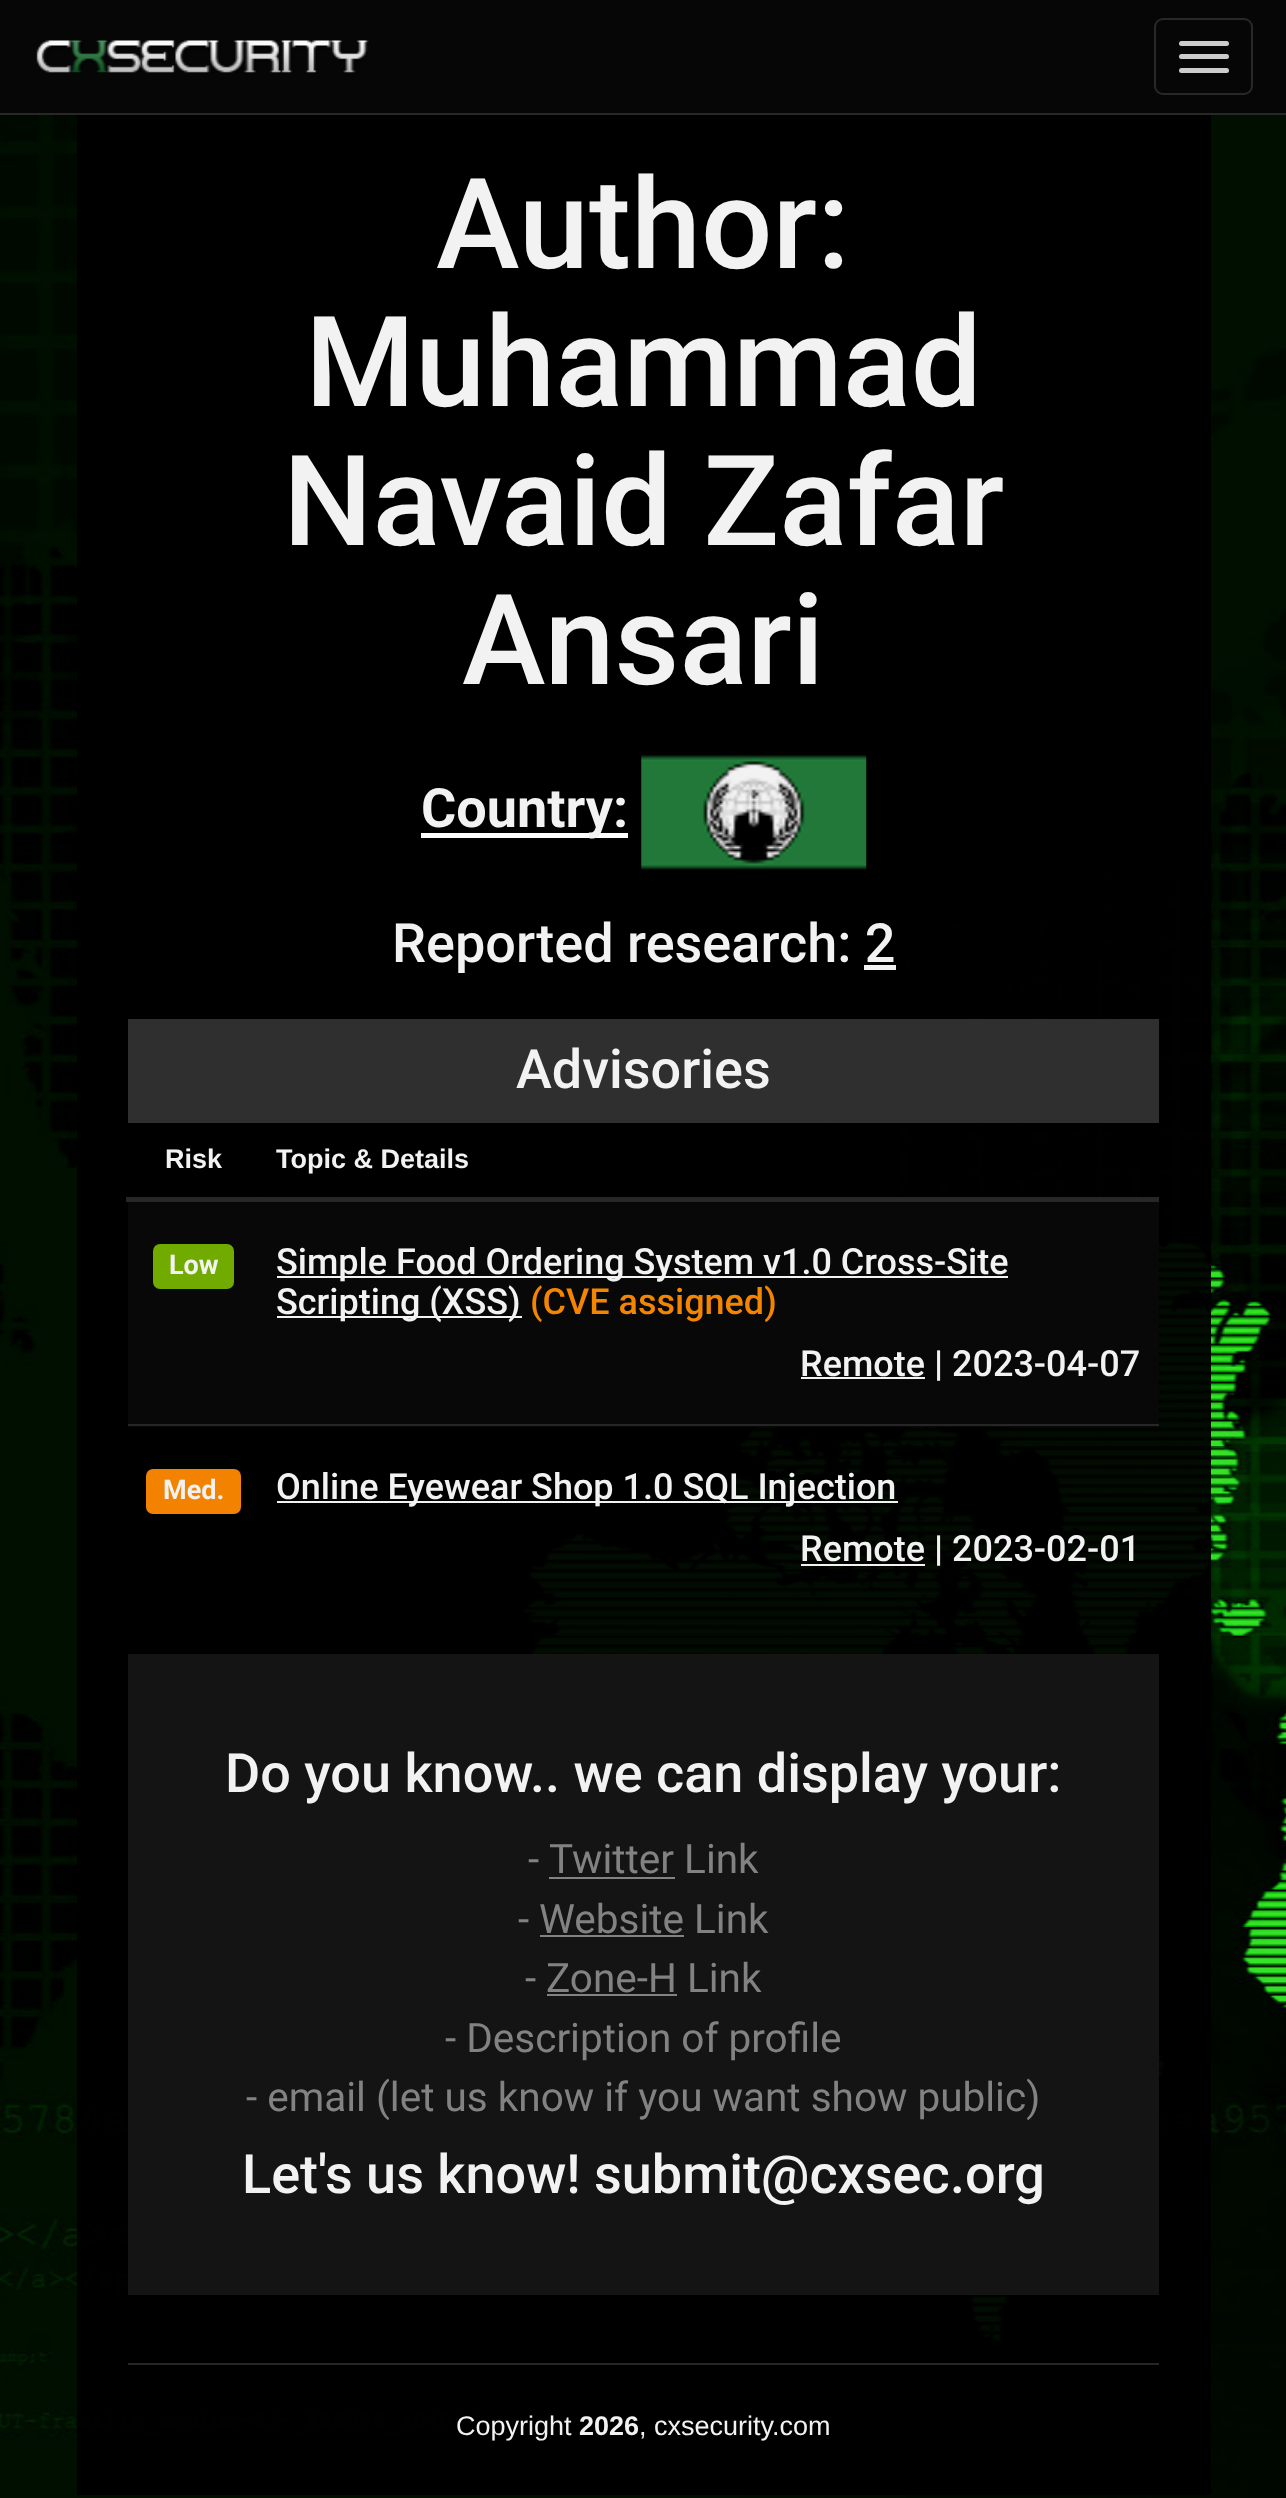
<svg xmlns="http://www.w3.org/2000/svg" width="1286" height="2498">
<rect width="100%" height="100%" fill="#fff"/>
<image x="0" y="115" width="1286" height="2383" href="media/1.png"/>
<rect width="1286" height="113" fill="#060606"/>
<rect y="113" width="1286" height="2" fill="#282828"/>
<image x="36" y="40" width="333" height="33" href="media/2.png"/>
<rect x="1155" y="19" width="97" height="75" rx="8" fill="none" stroke="#282828" stroke-width="2"/>
<rect x="1179" y="41" width="50" height="5" rx="2.5" fill="#ccc"/>
<rect x="1179" y="54" width="50" height="5" rx="2.5" fill="#ccc"/>
<rect x="1179" y="68" width="50" height="5" rx="2.5" fill="#ccc"/>
<rect x="77" y="115" width="51" height="2380" fill="#000000f2"/>
<rect x="128" y="115" width="1031" height="2380" fill="#000000f2"/>
<text x="436" y="268" style="font-family:Roboto;font-size:126px;font-weight:500;fill:#f2f2f2">Author:</text>
<text x="305" y="406" style="font-family:Roboto;font-size:126px;font-weight:500;fill:#f2f2f2">Muhammad</text>
<text x="283" y="545" style="font-family:Roboto;font-size:126px;font-weight:500;fill:#f2f2f2">Navaid Zafar</text>
<text x="462" y="684" style="font-family:Roboto;font-size:126px;font-weight:500;fill:#f2f2f2">Ansari</text>
<rect x="421" y="833" width="207" height="5" fill="#fefefe"/>
<text x="421" y="827" style="font-family:Roboto;font-size:54px;font-weight:bold;fill:#f2f2f2">Country:</text>
<image x="641" y="755" width="226" height="115" href="media/3.png"/>
<text x="392" y="962" style="font-family:Roboto;font-size:54px;font-weight:500;fill:#f2f2f2">Reported research: 2</text>
<rect x="864" y="965" width="32" height="5" fill="#f2f2f2"/>
<rect x="128" y="1019" width="1031" height="104" fill="#2e2f2e"/>
<text x="516" y="1088" style="font-family:Roboto;font-size:54px;font-weight:500;fill:#f2f2f2">Advisories</text>
<rect x="128" y="1199" width="1031" height="228" fill="#080808f2"/>
<rect x="257" y="1199" width="902" height="2" fill="#262626"/>
<rect x="128" y="1199" width="131" height="2" fill="#282828f2"/>
<rect x="257" y="1197" width="904" height="5" fill="#282828f2"/>
<rect x="126" y="1197" width="135" height="5" fill="#282828f2"/>
<text x="165" y="1168" style="font-family:Liberation Sans;font-size:27px;font-weight:bold;fill:#f2f2f2">Risk</text>
<text x="276" y="1168" style="font-family:Liberation Sans;font-size:27px;font-weight:bold;fill:#f2f2f2">Topic &amp; Details</text>
<rect x="153" y="1244" width="81" height="45" rx="7" fill="#71ab00"/>
<text x="169" y="1274" style="font-family:Roboto;font-size:27px;font-weight:bold;fill:#f2f2f2">Low</text>
<rect x="277" y="1276" width="731" height="2" fill="#f3f3f3"/>
<text x="276" y="1274" style="font-family:Roboto;font-size:36px;font-weight:500;fill:#f2f2f2">Simple Food Ordering System v1.0 Cross-Site</text>
<rect x="277" y="1316" width="245" height="2" fill="#f3f3f3"/>
<text x="276" y="1314" style="font-family:Roboto;font-size:36px;font-weight:500;fill:#f2f2f2">Scripting (XSS)</text>
<text x="530" y="1314" style="font-family:Roboto;font-size:36px;font-weight:500;fill:#f38500">(CVE assigned)</text>
<text x="800" y="1376" style="font-family:Roboto;font-size:36px;font-weight:500;fill:#f2f2f2">Remote</text>
<rect x="801" y="1377" width="124" height="2" fill="#f3f3f3"/>
<text x="934" y="1376" style="font-family:Roboto;font-size:36px;font-weight:bold;fill:#f2f2f2">|</text>
<text x="952" y="1376" style="font-family:Roboto;font-size:36px;font-weight:500;fill:#f2f2f2">2023-04-07</text>
<rect x="257" y="1424" width="902" height="2" fill="#262626"/>
<rect x="128" y="1424" width="131" height="2" fill="#282828f2"/>
<rect x="146" y="1469" width="95" height="45" rx="7" fill="#f28200"/>
<text x="163" y="1499" style="font-family:Roboto;font-size:27px;font-weight:bold;fill:#f2f2f2">Med.</text>
<rect x="277" y="1501" width="621" height="2" fill="#fffffff2"/>
<text x="276" y="1499" style="font-family:Roboto;font-size:36px;font-weight:500;fill:#f2f2f2">Online Eyewear Shop 1.0 SQL Injection</text>
<text x="800" y="1561" style="font-family:Roboto;font-size:36px;font-weight:500;fill:#f2f2f2">Remote</text>
<rect x="801" y="1564" width="124" height="2" fill="#fffffff2"/>
<text x="934" y="1561" style="font-family:Roboto;font-size:36px;font-weight:bold;fill:#f2f2f2">|</text>
<text x="952" y="1561" style="font-family:Roboto;font-size:36px;font-weight:500;fill:#f2f2f2">2023-02-01</text>
<rect x="128" y="1654" width="1031" height="641" fill="#151515f2"/>
<text x="225" y="1792" style="font-family:Roboto;font-size:54px;font-weight:500;fill:#f2f2f2">Do you know.. we can display your:</text>
<text x="528" y="1873" style="font-family:Roboto;font-size:40.5px;fill:#818281">-</text>
<text x="549" y="1873" style="font-family:Roboto;font-size:40.5px;fill:#818281">Twitter Link</text>
<rect x="549" y="1877" width="126" height="2" fill="#828282"/>
<text x="518" y="1933" style="font-family:Roboto;font-size:40.5px;fill:#818281">-</text>
<text x="539" y="1933" style="font-family:Roboto;font-size:40.5px;fill:#818281">Website Link</text>
<rect x="540" y="1935" width="144" height="2" fill="#828282"/>
<text x="525" y="1992" style="font-family:Roboto;font-size:40.5px;fill:#818281">-</text>
<text x="546" y="1992" style="font-family:Roboto;font-size:40.5px;fill:#818281">Zone-H Link</text>
<rect x="547" y="1994" width="130" height="2" fill="#828282"/>
<text x="445" y="2052" style="font-family:Roboto;font-size:40.5px;fill:#818281">- Description of profile</text>
<text x="246" y="2111" style="font-family:Roboto;font-size:40.5px;fill:#818281">- email (let us know if you want show public)</text>
<text x="242" y="2193" style="font-family:Roboto;font-size:54px;font-weight:500;fill:#f2f2f2">Let's us know! submit@cxsec</text>
<text x="950" y="2193" style="font-family:Roboto;font-size:54px;font-weight:500;fill:#f2f2f2">.</text>
<text x="965" y="2193" style="font-family:Roboto;font-size:54px;font-weight:500;fill:#f2f2f2">org</text>
<rect x="128" y="2363" width="1031" height="2" fill="#262626"/>
<text x="456" y="2435" style="font-family:Liberation Sans;font-size:27px;fill:#f2f2f2">Copyright</text>
<text x="579" y="2435" style="font-family:Liberation Sans;font-size:27px;font-weight:bold;fill:#f2f2f2">2026</text>
<text x="639" y="2435" style="font-family:Liberation Sans;font-size:27px;fill:#f2f2f2">, cxsecurity.com</text>
<rect x="1159" y="115" width="52" height="2380" fill="#000000f2"/>
</svg>
